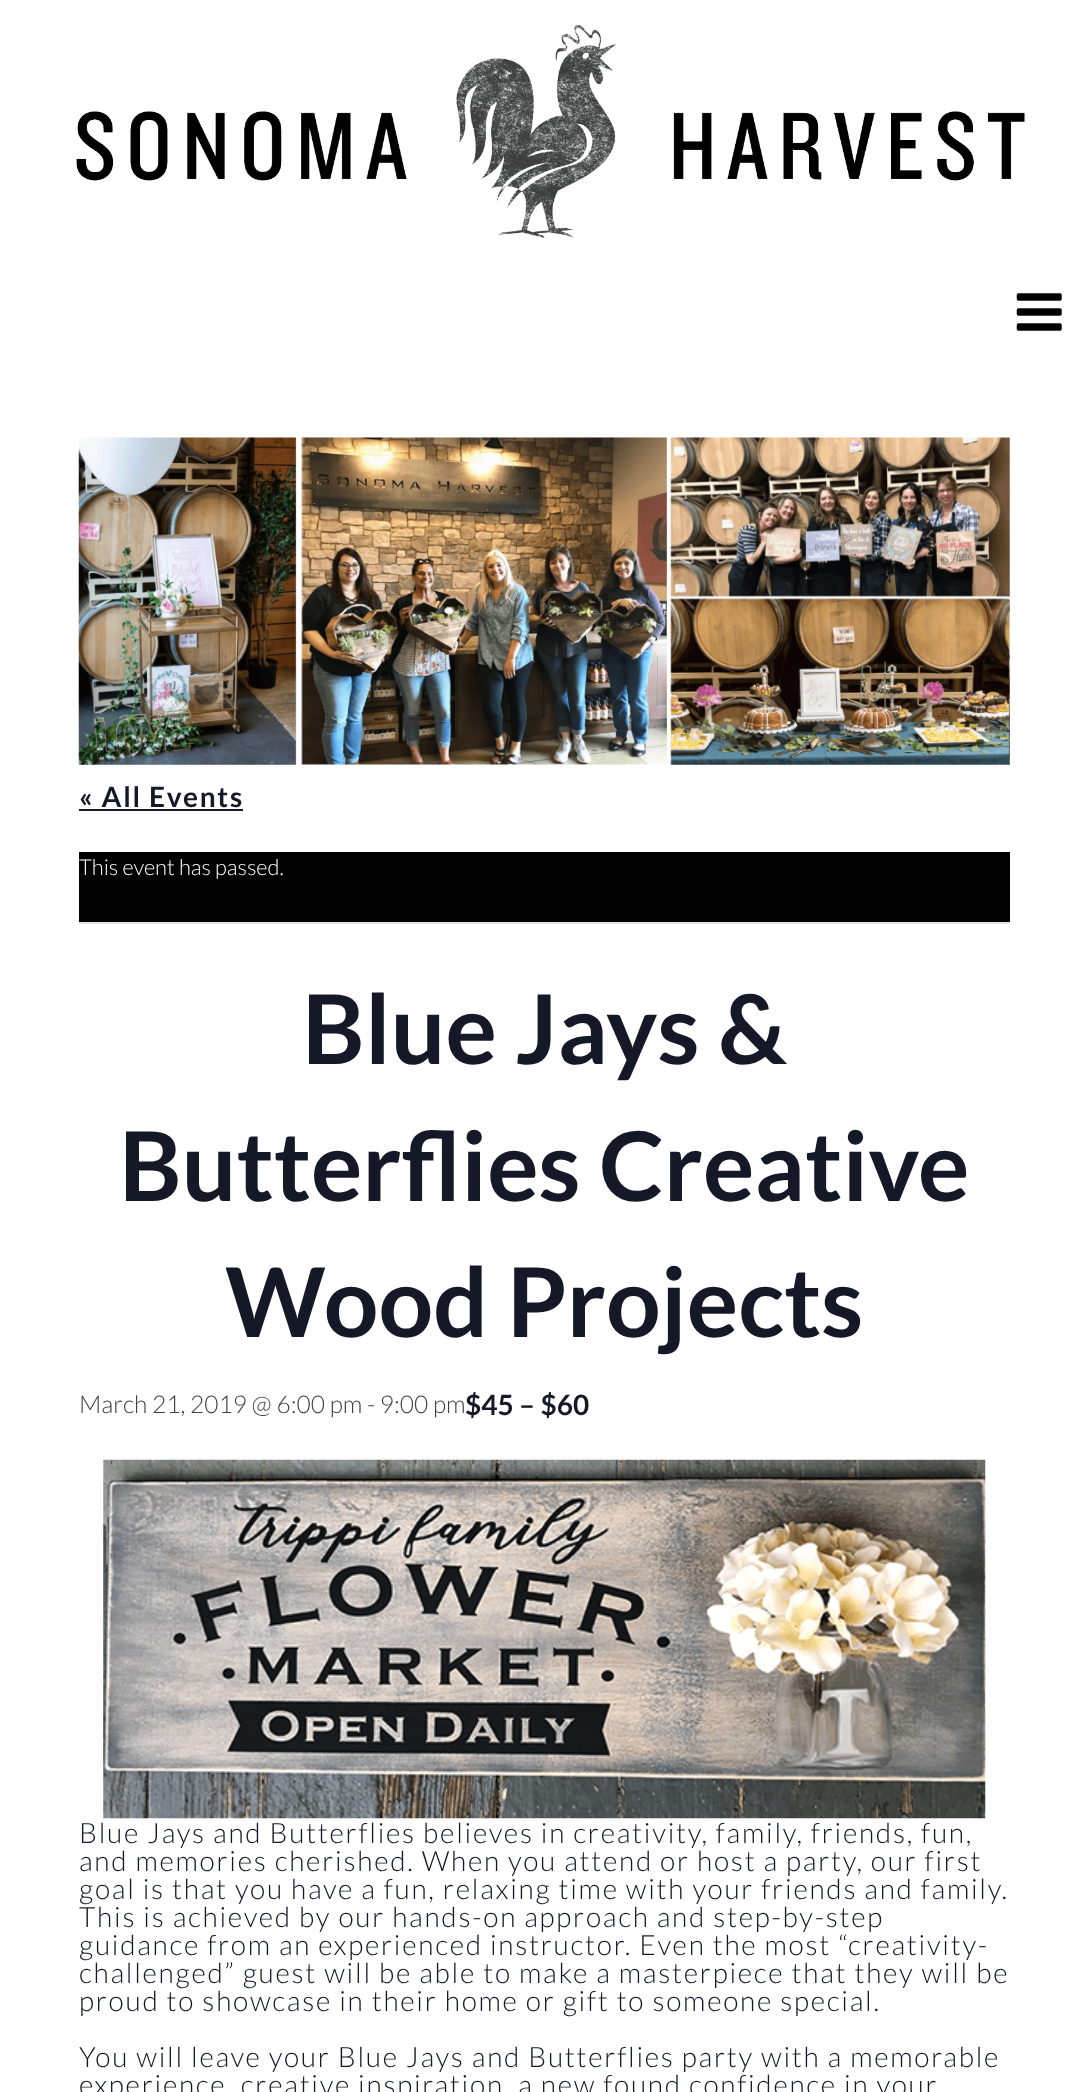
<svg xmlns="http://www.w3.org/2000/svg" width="1087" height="2092">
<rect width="100%" height="100%" fill="#fff"/>
<image x="76" y="24" width="949" height="214" href="media/1.png"/>
<image x="1016" y="293" width="46" height="38" href="media/2.png"/>
<image x="78" y="437" width="932" height="328" href="media/3.png"/>
<text x="79" y="807" style="font-family:Lato;font-size:28px;font-weight:bold;letter-spacing:1.75px;fill:#141827">« All Events</text>
<rect x="79" y="809" width="164" height="2" fill="#141827"/>
<rect x="79" y="852" width="931" height="70" fill="#000"/>
<rect x="79" y="922" width="931" height="2" fill="#e4e4e4"/>
<text x="79" y="875" style="font-family:Lato;font-size:21.9px;font-weight:300;fill:#fff">This event has passed.</text>
<text x="302" y="1064" style="font-family:Lato;font-size:96.25px;font-weight:bold;fill:#141827">Blue Jays &amp;</text>
<text x="119" y="1201" style="font-family:Lato;font-size:96.25px;font-weight:bold;fill:#141827">Butterflies Creative</text>
<text x="225" y="1337" style="font-family:Lato;font-size:96.25px;font-weight:bold;fill:#141827">Wood Projects</text>
<text x="79" y="1413" style="font-family:Lato;font-size:24.5px;font-weight:300;fill:#404040">March 21, 2019 @ 6:00 pm - 9:00 pm</text>
<text x="465" y="1415" style="font-family:Lato;font-size:28px;font-weight:bold;fill:#141827">$45 – $60</text>
<image x="103" y="1459" width="883" height="360" href="media/4.png"/>
<text x="79" y="1843" style="font-family:Lato;font-size:28px;font-weight:300;letter-spacing:1.75px;fill:#141827">Blue Jays and Butterflies believes in creativity, family, friends, fun,</text>
<text x="79" y="1871" style="font-family:Lato;font-size:28px;font-weight:300;letter-spacing:1.75px;fill:#141827">and memories cherished. When you attend or host a party, our first</text>
<text x="79" y="1899" style="font-family:Lato;font-size:28px;font-weight:300;letter-spacing:1.75px;fill:#141827">goal is that you have a fun, relaxing time with your friends and family.</text>
<text x="79" y="1927" style="font-family:Lato;font-size:28px;font-weight:300;letter-spacing:1.75px;fill:#141827">This is achieved by our hands-on approach and step-by-step</text>
<text x="79" y="1955" style="font-family:Lato;font-size:28px;font-weight:300;letter-spacing:1.75px;fill:#141827">guidance from an experienced instructor. Even the most “creativity-</text>
<text x="79" y="1983" style="font-family:Lato;font-size:28px;font-weight:300;letter-spacing:1.75px;fill:#141827">challenged” guest will be able to make a masterpiece that they will be</text>
<text x="79" y="2011" style="font-family:Lato;font-size:28px;font-weight:300;letter-spacing:1.75px;fill:#141827">proud to showcase in their home or gift to someone special.</text>
<text x="79" y="2067" style="font-family:Lato;font-size:28px;font-weight:300;letter-spacing:1.75px;fill:#141827">You will leave your Blue Jays and Butterflies party with a memorable</text>
<text x="79" y="2095" style="font-family:Lato;font-size:28px;font-weight:300;letter-spacing:1.75px;fill:#141827">experience, creative inspiration, a new found confidence in your</text>
</svg>
